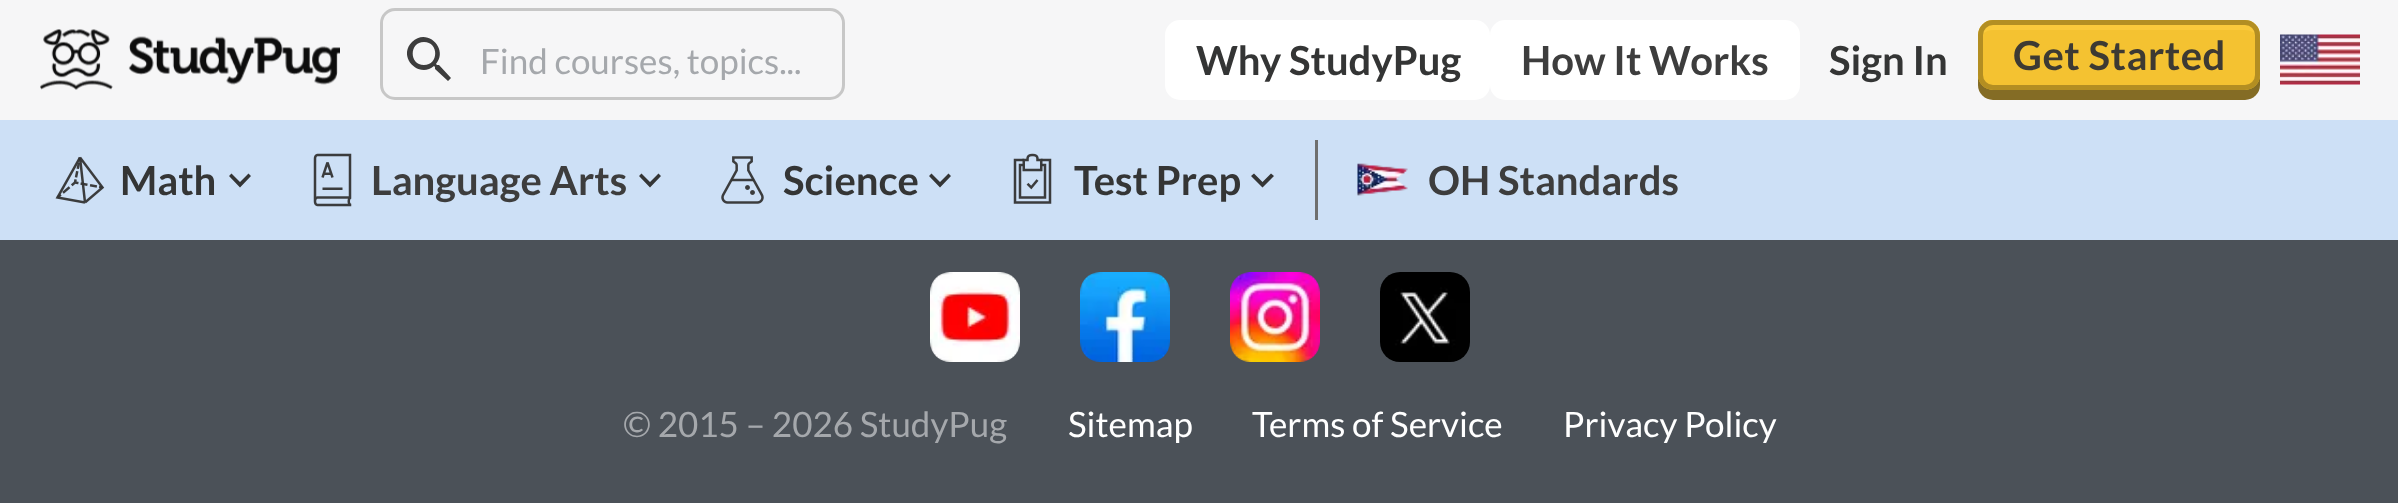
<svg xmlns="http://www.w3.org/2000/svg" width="2398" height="503">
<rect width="100%" height="100%" fill="#4b5158"/>
<rect width="2398" height="120" fill="#f6f6f7"/>
<image x="40" y="29" width="300" height="61" href="media/1.png"/>
<path d="M439 65h-2l-1-1c13-15-9-37-24-22c-15 15 7 37 22 24l1 1v2l13 12l3-3zm-15 0c-15 0-15-23 0-23c15 0 15 23 0 23" fill="#333333f2"/>
<rect x="381.5" y="9.5" width="462" height="89" rx="13.5" fill="none" stroke="#c4c4c4f2" stroke-width="3"/>
<text x="480" y="74" style="font-family:Lato;font-size:35px;fill:#a5a8ac">Find courses, topics...</text>
<rect x="1165" y="20" width="325" height="80" rx="15" fill="#fffffff2"/>
<text x="1196" y="75" style="font-family:Lato;font-size:40px;font-weight:bold;fill:#343535">Why StudyPug</text>
<rect x="1490" y="20" width="310" height="80" rx="15" fill="#fffffff2"/>
<text x="1521" y="75" style="font-family:Lato;font-size:40px;font-weight:bold;fill:#3d3d3d">How It Works</text>
<text x="1829" y="75" style="font-family:Lato;font-size:40px;font-weight:bold;fill:#343535">Sign In</text>
<rect x="1978" y="30" width="282" height="70" rx="15" fill="#7d6419f2"/>
<rect x="1978" y="20" width="282" height="70" rx="15" fill="#fac731f2"/>
<rect x="1980.5" y="22.5" width="277" height="65" rx="12.5" fill="none" stroke="#af8b22f2" stroke-width="5"/>
<text x="2013" y="70" style="font-family:Lato;font-size:40px;font-weight:bold;letter-spacing:0.5px;fill:#3d3a33">Get Started</text>
<image x="2280" y="34" width="80" height="51" href="media/2.png"/>
<rect y="120" width="2398" height="120" fill="#cde0f6"/>
<image x="55" y="156" width="50" height="48" href="media/3.png"/>
<text x="120" y="195" style="font-family:Lato;font-size:40px;font-weight:bold;fill:#343535">Math</text>
<path d="M231.5 173.5l8.5 8.5l8.5-8.5l2.5 2.5l-11 11.5l-11-11.5z" fill="#343535"/>
<image x="313" y="153" width="39" height="54" href="media/4.png"/>
<text x="371" y="195" style="font-family:Lato;font-size:40px;font-weight:bold;fill:#3d3d3d">Language Arts</text>
<path d="M641.5 173.5l8.5 8.5l8.5-8.5l2.5 2.5l-11 11.5l-11-11.5z" fill="#343535"/>
<image x="721" y="156" width="43" height="48" href="media/5.png"/>
<text x="783" y="195" style="font-family:Lato;font-size:40px;font-weight:bold;fill:#343535">Science</text>
<path d="M931.5 173.5l8.5 8.5l8.5-8.5l2.5 2.5l-11 11.5l-11-11.5z" fill="#343535"/>
<image x="1013" y="153" width="39" height="51" href="media/6.png"/>
<text x="1074" y="195" style="font-family:Lato;font-size:40px;font-weight:bold;fill:#343535">Test Prep</text>
<path d="M1254 173.5l8.5 8.5l8.5-8.5l3 2.5l-11.5 11.5l-11.5-11.5z" fill="#343535"/>
<rect x="1315" y="140" width="3" height="80" fill="#6e6f6f"/>
<image x="1357" y="163" width="51" height="33" href="media/7.png"/>
<text x="1428" y="195" style="font-family:Lato;font-size:40px;font-weight:bold;fill:#3d3d3d">OH Standards</text>
<image x="930" y="272" width="90" height="90" href="media/8.png"/>
<image x="1080" y="272" width="90" height="90" href="media/9.png"/>
<image x="1230" y="272" width="90" height="90" href="media/10.png"/>
<image x="1380" y="272" width="90" height="90" href="media/11.png"/>
<text x="623" y="437" style="font-family:Lato;font-size:35px;fill:#a5a8ac">© 2015 – 2026 StudyPug</text>
<text x="1068" y="437" style="font-family:Lato;font-size:35px;fill:#fff">Sitemap</text>
<text x="1252" y="437" style="font-family:Lato;font-size:35px;fill:#fff">Terms of Service</text>
<text x="1563" y="437" style="font-family:Lato;font-size:35px;fill:#fff">Privacy Policy</text>
</svg>
